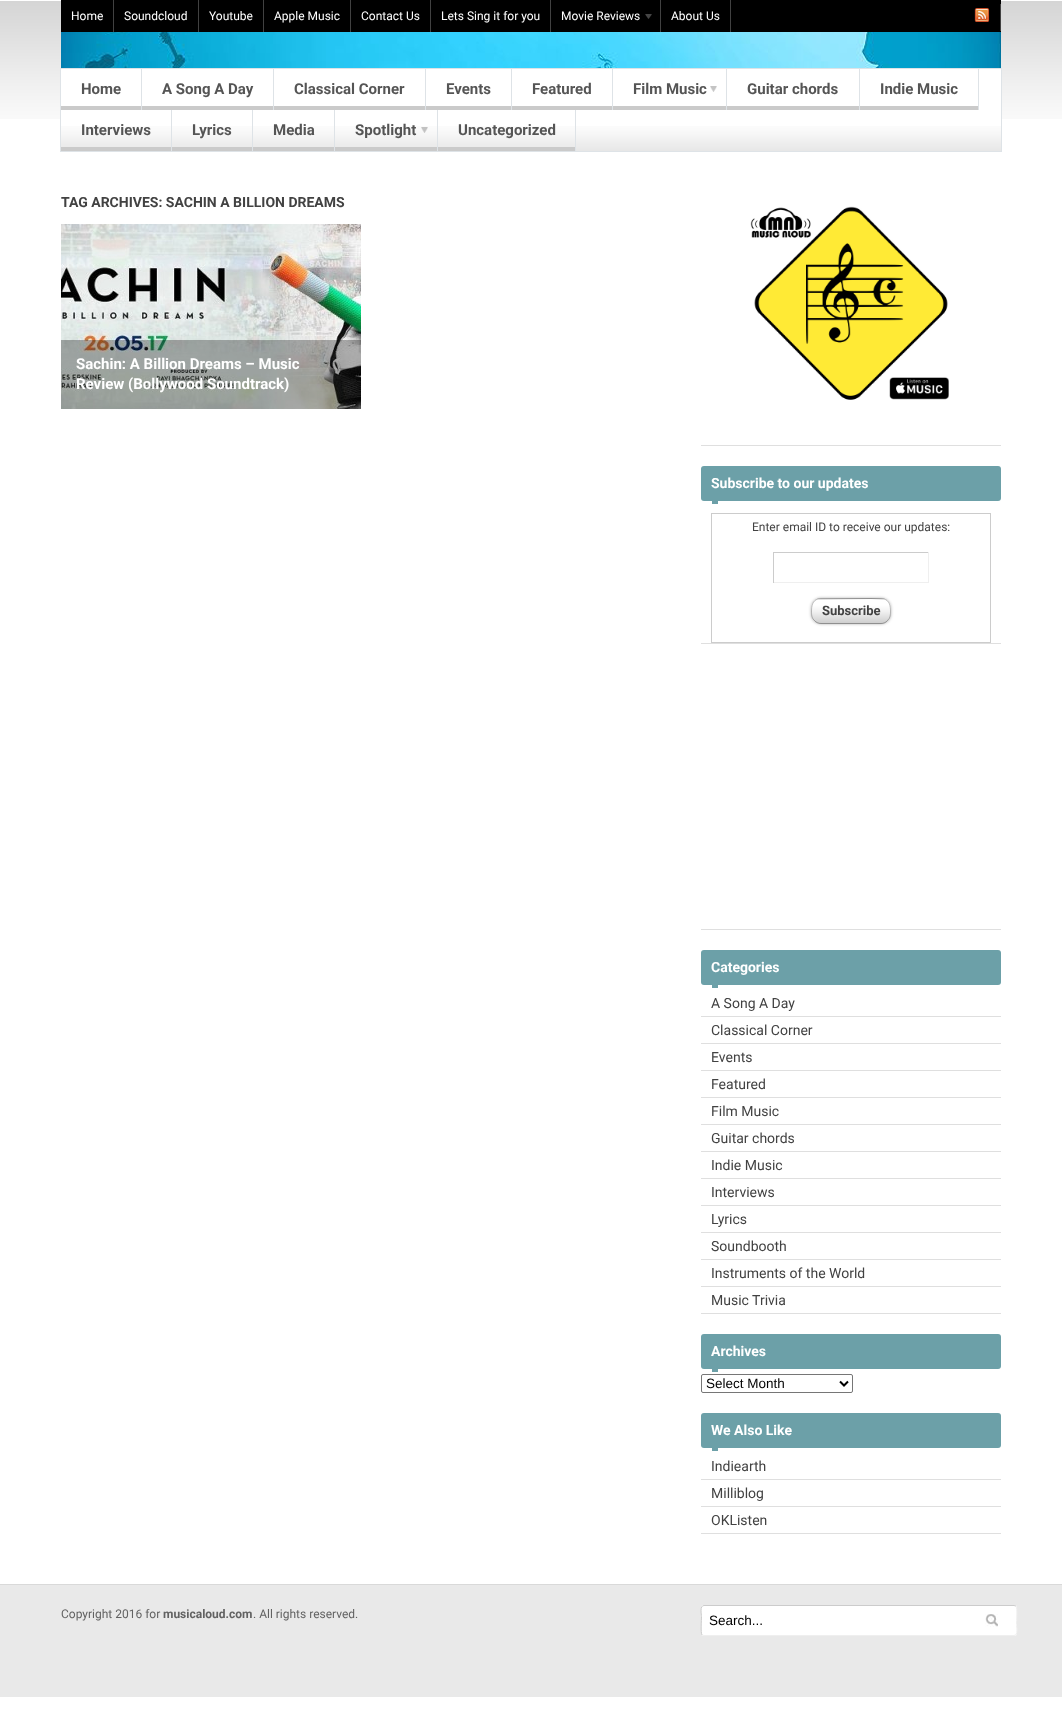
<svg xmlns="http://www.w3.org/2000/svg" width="1062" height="1719">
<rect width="100%" height="100%" fill="#fff"/>
<image x="0" y="1" width="1062" height="118" href="media/1.png"/>
<rect x="61" width="940" height="32" fill="#000"/>
<rect x="113" width="1" height="32" fill="#414141"/>
<text x="71" y="20" style="font-family:Roboto;font-size:12px;fill:#fff">Home</text>
<rect x="198" width="1" height="32" fill="#414141"/>
<text x="124" y="20" style="font-family:Roboto;font-size:12px;fill:#fff">Soundcloud</text>
<rect x="263" width="1" height="32" fill="#414141"/>
<text x="209" y="20" style="font-family:Roboto;font-size:12px;fill:#fff">Youtube</text>
<rect x="350" width="1" height="32" fill="#414141"/>
<text x="274" y="20" style="font-family:Roboto;font-size:12px;fill:#fff">Apple Music</text>
<rect x="430" width="1" height="32" fill="#414141"/>
<text x="361" y="20" style="font-family:Roboto;font-size:12px;fill:#fff">Contact Us</text>
<rect x="550" width="1" height="32" fill="#414141"/>
<text x="441" y="20" style="font-family:Roboto;font-size:12px;fill:#fff">Lets Sing it for you</text>
<rect x="660" width="1" height="32" fill="#414141"/>
<text x="561" y="20" style="font-family:Roboto;font-size:12px;fill:#fff">Movie Reviews</text>
<image x="645" y="14" width="7" height="5" href="media/2.png"/>
<rect x="730" width="1" height="32" fill="#414141"/>
<text x="671" y="20" style="font-family:Roboto;font-size:12px;fill:#fff">About Us</text>
<image x="974" y="8" width="16" height="14" href="media/3.png"/>
<rect x="1000" y="4" width="1" height="27" fill="#414141"/>
<image x="61" y="32" width="940" height="36" href="media/4.png"/>
<rect x="61" y="69" width="940" height="50" fill="#fff"/>
<image x="61" y="126" width="940" height="25" href="media/5.png"/>
<rect x="60.5" y="68.5" width="941" height="83" fill="none" stroke="#dee3e7"/>
<rect x="141" y="69" width="1" height="41" fill="#dee3e7"/>
<rect x="61" y="106" width="80" height="4" fill="#cacaca"/>
<text x="81" y="94" style="font-family:Roboto;font-size:15px;font-weight:bold;fill:#555">Home</text>
<rect x="273" y="69" width="1" height="41" fill="#dee3e7"/>
<rect x="142" y="106" width="131" height="4" fill="#cacaca"/>
<text x="162" y="94" style="font-family:Roboto;font-size:15px;font-weight:bold;fill:#555">A Song A Day</text>
<rect x="425" y="69" width="1" height="41" fill="#dee3e7"/>
<rect x="274" y="106" width="151" height="4" fill="#cacaca"/>
<text x="294" y="94" style="font-family:Roboto;font-size:15px;font-weight:bold;fill:#555">Classical Corner</text>
<rect x="511" y="69" width="1" height="41" fill="#dee3e7"/>
<rect x="426" y="106" width="85" height="4" fill="#cacaca"/>
<text x="446" y="94" style="font-family:Roboto;font-size:15px;font-weight:bold;fill:#555">Events</text>
<rect x="612" y="69" width="1" height="41" fill="#dee3e7"/>
<rect x="512" y="106" width="100" height="4" fill="#cacaca"/>
<text x="532" y="94" style="font-family:Roboto;font-size:15px;font-weight:bold;fill:#555">Featured</text>
<rect x="726" y="69" width="1" height="41" fill="#dee3e7"/>
<rect x="613" y="106" width="113" height="4" fill="#cacaca"/>
<text x="633" y="94" style="font-family:Roboto;font-size:15px;font-weight:bold;fill:#555">Film Music</text>
<image x="710" y="86" width="7" height="6" href="media/6.png"/>
<rect x="859" y="69" width="1" height="41" fill="#dee3e7"/>
<rect x="727" y="106" width="132" height="4" fill="#cacaca"/>
<text x="747" y="94" style="font-family:Roboto;font-size:15px;font-weight:bold;fill:#555">Guitar chords</text>
<rect x="978" y="69" width="1" height="41" fill="#dee3e7"/>
<rect x="860" y="106" width="118" height="4" fill="#cacaca"/>
<text x="880" y="94" style="font-family:Roboto;font-size:15px;font-weight:bold;fill:#555">Indie Music</text>
<rect x="171" y="110" width="1" height="41" fill="#dee3e7"/>
<rect x="61" y="147" width="110" height="4" fill="#cacaca"/>
<text x="81" y="135" style="font-family:Roboto;font-size:15px;font-weight:bold;fill:#555">Interviews</text>
<rect x="252" y="110" width="1" height="41" fill="#dee3e7"/>
<rect x="172" y="147" width="80" height="4" fill="#cacaca"/>
<text x="192" y="135" style="font-family:Roboto;font-size:15px;font-weight:bold;fill:#555">Lyrics</text>
<rect x="334" y="110" width="1" height="41" fill="#dee3e7"/>
<rect x="253" y="147" width="81" height="4" fill="#cacaca"/>
<text x="273" y="135" style="font-family:Roboto;font-size:15px;font-weight:bold;fill:#555">Media</text>
<rect x="437" y="110" width="1" height="41" fill="#dee3e7"/>
<rect x="335" y="147" width="102" height="4" fill="#cacaca"/>
<text x="355" y="135" style="font-family:Roboto;font-size:15px;font-weight:bold;fill:#555">Spotlight</text>
<image x="421" y="127" width="7" height="6" href="media/7.png"/>
<rect x="575" y="110" width="1" height="41" fill="#dee3e7"/>
<rect x="438" y="147" width="137" height="4" fill="#cacaca"/>
<text x="458" y="135" style="font-family:Roboto;font-size:15px;font-weight:bold;fill:#555">Uncategorized</text>
<text x="61" y="207" style="font-family:Roboto;font-size:14px;font-weight:bold;fill:#424242">TAG ARCHIVES: SACHIN A BILLION DREAMS</text>
<image x="61" y="224" width="300" height="185" href="media/8.png"/>
<rect x="61" y="340" width="300" height="69" fill="#0000004d"/>
<text x="76" y="369" style="font-family:Roboto;font-size:15px;font-weight:bold;fill:#fff">Sachin: A Billion Dreams – Music</text>
<text x="76" y="389" style="font-family:Roboto;font-size:15px;font-weight:bold;fill:#fff">Review (Bollywood Soundtrack)</text>
<rect x="701" y="445" width="300" height="1" fill="#dfdfdf"/>
<image x="750" y="206" width="199" height="194" href="media/9.png"/>
<rect x="701" y="466" width="300" height="35" rx="3" fill="#6ca0a8"/>
<text x="711" y="488" style="font-family:Roboto;font-size:14px;font-weight:bold;fill:#fff">Subscribe to our updates</text>
<rect x="712" y="501" width="6" height="3" fill="#6ca0a8"/>
<rect x="701" y="643" width="300" height="1" fill="#dfdfdf"/>
<rect x="711.5" y="513.5" width="279" height="129" fill="none" stroke="#ccc"/>
<text x="752" y="531" style="font-family:Roboto;font-size:12px;fill:#424242">Enter email ID to receive our updates:</text>
<rect x="773" y="552" width="156" height="1" fill="#ccc"/>
<rect x="928" y="552" width="1" height="31" fill="#efefef"/>
<rect x="773" y="582" width="156" height="1" fill="#efefef"/>
<rect x="773" y="552" width="1" height="31" fill="#ccc"/>
<rect x="811" y="598" width="80" height="26" rx="10" fill="#0000004d" filter="blur(1.5px)"/>
<rect x="811" y="598" width="80" height="26" rx="10" fill="#fff"/>
<image x="811" y="598" width="80" height="26" href="media/10.png"/>
<path d="M887.5 620.5c-1.5 2-4 3-6.5 3h-60c-2.5 0-5-1-6.5-3" fill="none" stroke="#0000004d"/>
<path d="M814.5 620.5c-3-2.5-3-6-3-9.5c0-5 1-10.5 6.5-12l53-.5l13 .5c5.5 1.5 6.5 7 6.5 12c0 3.5 0 7-3 9.5" fill="none" stroke="#00000040"/>
<text x="822" y="615" style="font-family:Roboto;font-size:13px;font-weight:bold;fill:#424242">Subscribe</text>
<rect x="701" y="929" width="300" height="1" fill="#dfdfdf"/>
<rect x="701" y="950" width="300" height="35" rx="3" fill="#6ca0a8"/>
<text x="711" y="972" style="font-family:Roboto;font-size:14px;font-weight:bold;fill:#fff">Categories</text>
<rect x="712" y="985" width="6" height="3" fill="#6ca0a8"/>
<rect x="701" y="1016" width="300" height="1" fill="#dfdfdf"/>
<text x="711" y="1008" style="font-family:Roboto;font-size:14px;fill:#424242">A Song A Day</text>
<rect x="701" y="1043" width="300" height="1" fill="#dfdfdf"/>
<text x="711" y="1035" style="font-family:Roboto;font-size:14px;fill:#424242">Classical Corner</text>
<rect x="701" y="1070" width="300" height="1" fill="#dfdfdf"/>
<text x="711" y="1062" style="font-family:Roboto;font-size:14px;fill:#424242">Events</text>
<rect x="701" y="1097" width="300" height="1" fill="#dfdfdf"/>
<text x="711" y="1089" style="font-family:Roboto;font-size:14px;fill:#424242">Featured</text>
<rect x="701" y="1124" width="300" height="1" fill="#dfdfdf"/>
<text x="711" y="1116" style="font-family:Roboto;font-size:14px;fill:#424242">Film Music</text>
<rect x="701" y="1151" width="300" height="1" fill="#dfdfdf"/>
<text x="711" y="1143" style="font-family:Roboto;font-size:14px;fill:#424242">Guitar chords</text>
<rect x="701" y="1178" width="300" height="1" fill="#dfdfdf"/>
<text x="711" y="1170" style="font-family:Roboto;font-size:14px;fill:#424242">Indie Music</text>
<rect x="701" y="1205" width="300" height="1" fill="#dfdfdf"/>
<text x="711" y="1197" style="font-family:Roboto;font-size:14px;fill:#424242">Interviews</text>
<rect x="701" y="1232" width="300" height="1" fill="#dfdfdf"/>
<text x="711" y="1224" style="font-family:Roboto;font-size:14px;fill:#424242">Lyrics</text>
<rect x="701" y="1259" width="300" height="1" fill="#dfdfdf"/>
<text x="711" y="1251" style="font-family:Roboto;font-size:14px;fill:#424242">Soundbooth</text>
<rect x="701" y="1286" width="300" height="1" fill="#dfdfdf"/>
<text x="711" y="1278" style="font-family:Roboto;font-size:14px;fill:#424242">Instruments of the World</text>
<rect x="701" y="1313" width="300" height="1" fill="#dfdfdf"/>
<text x="711" y="1305" style="font-family:Roboto;font-size:14px;fill:#424242">Music Trivia</text>
<rect x="701" y="1334" width="300" height="35" rx="3" fill="#6ca0a8"/>
<text x="711" y="1356" style="font-family:Roboto;font-size:14px;font-weight:bold;fill:#fff">Archives</text>
<rect x="712" y="1369" width="6" height="3" fill="#6ca0a8"/>
<rect x="701.5" y="1374.5" width="151" height="18" rx="1.5" fill="none" stroke="#767676"/>
<path d="M840 1381.5l4 4l4-4" fill="none" stroke="#000" stroke-width="2"/>
<text x="706" y="1388" style="font-family:Liberation Sans;font-size:13.5px;fill:#000">Select Month</text>
<rect x="701" y="1413" width="300" height="35" rx="3" fill="#6ca0a8"/>
<text x="711" y="1435" style="font-family:Roboto;font-size:14px;font-weight:bold;fill:#fff">We Also Like</text>
<rect x="712" y="1448" width="6" height="3" fill="#6ca0a8"/>
<rect x="701" y="1479" width="300" height="1" fill="#dfdfdf"/>
<text x="711" y="1471" style="font-family:Roboto;font-size:14px;fill:#424242">Indiearth</text>
<rect x="701" y="1506" width="300" height="1" fill="#dfdfdf"/>
<text x="711" y="1498" style="font-family:Roboto;font-size:14px;fill:#424242">Milliblog</text>
<rect x="701" y="1533" width="300" height="1" fill="#dfdfdf"/>
<text x="711" y="1525" style="font-family:Roboto;font-size:14px;fill:#424242">OKListen</text>
<rect y="1585" width="1062" height="112" fill="#e9e9e9"/>
<rect y="1584" width="1062" height="1" fill="#d9d9d9"/>
<text x="61" y="1618" style="font-family:Roboto;font-size:12px;fill:#626262">Copyright 2016 for</text>
<text x="163" y="1618" style="font-family:Roboto;font-size:12px;font-weight:bold;fill:#626262">musicaloud.com</text>
<text x="253" y="1618" style="font-family:Roboto;font-size:12px;fill:#626262">. All rights reserved.</text>
<rect x="701" y="1605" width="316" height="31" rx="3" fill="#fff"/>
<image x="985" y="1614" width="13" height="13" href="media/11.png"/>
<path d="M1016 1606c1.5 2 .5 15.5 .5 18.5c0 2 2 11-2.5 11h-310l-2-.5" fill="none" stroke="#efefef"/>
<path d="M702 1635c-1.5-2-.5-15.5-.5-18.5c0-2-2-11 2.5-11h310l2 .5" fill="none" stroke="#ccc"/>
<text x="709" y="1625" style="font-family:Liberation Sans;font-size:13.5px;fill:#000">Search...</text>
</svg>
